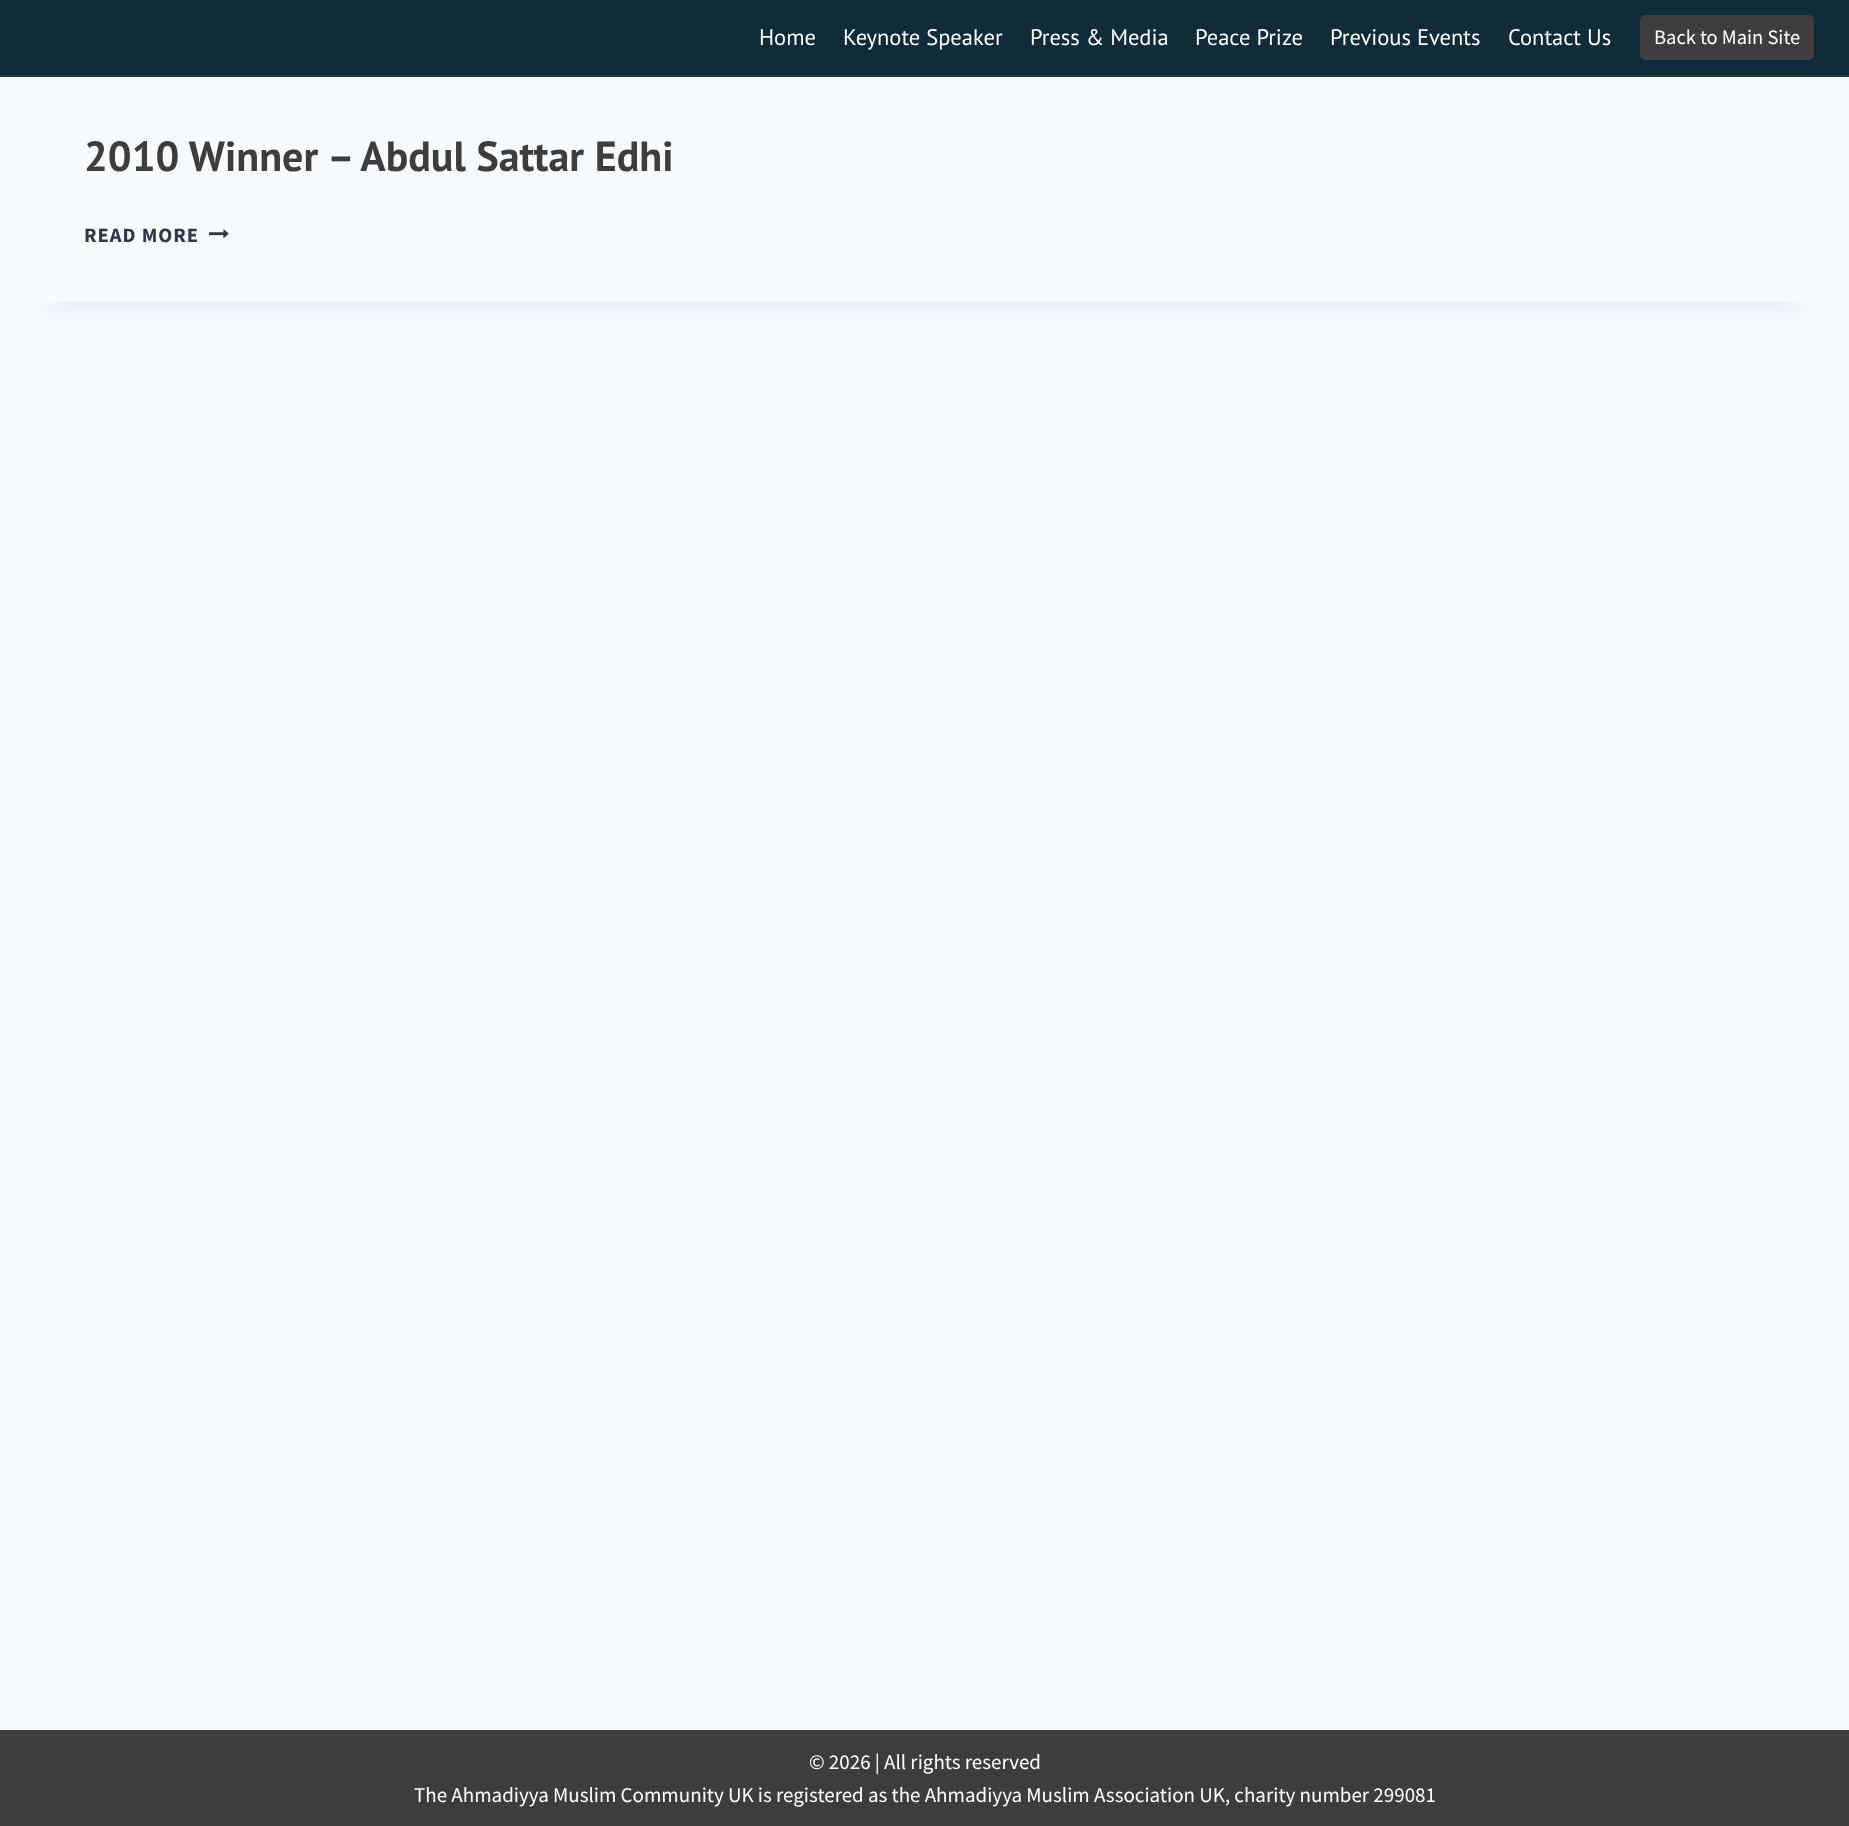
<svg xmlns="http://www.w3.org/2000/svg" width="1849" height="1826">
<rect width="100%" height="100%" fill="#f7fafc"/>
<rect width="1849" height="75" fill="#102c39"/>
<rect y="75" width="1849" height="2" fill="#23363e"/>
<text x="759" y="45" style="font-family:PT Sans;font-size:22.5px;fill:#fff">Home</text>
<text x="843" y="45" style="font-family:PT Sans;font-size:22.5px;fill:#fff">Keynote Speaker</text>
<text x="1030" y="45" style="font-family:PT Sans;font-size:22.5px;fill:#fff">Press &amp; Media</text>
<text x="1195" y="45" style="font-family:PT Sans;font-size:22.5px;fill:#fff">Peace Prize</text>
<text x="1330" y="45" style="font-family:PT Sans;font-size:22.5px;fill:#fff">Previous Events</text>
<text x="1508" y="45" style="font-family:PT Sans;font-size:22.5px;fill:#fff">Contact Us</text>
<rect x="1640" y="15" width="174" height="45" rx="5" fill="#3c3d3c"/>
<text x="1654" y="44" style="font-family:Source Sans Pro;font-size:20.5px;fill:#fff">Back to Main Site</text>
<rect x="51" y="114" width="1748" height="195" fill="#0000000d" filter="blur(11px)"/>
<rect x="36" y="77" width="1778" height="225" rx="6" fill="#f7fafc"/>
<text x="84" y="171" style="font-family:PT Sans;font-size:42px;font-weight:bold;fill:#3c3d3c">2010 Winner – Abdul Sattar Edhi</text>
<text x="84" y="242" style="font-family:Source Sans Pro;font-size:20.5px;font-weight:bold;letter-spacing:1px;fill:#2d3748">READ MORE</text>
<image x="209" y="229" width="20" height="9" href="media/1.png"/>
<rect y="1730" width="1849" height="96" fill="#3c3d3c"/>
<text x="809" y="1769" style="font-family:Source Sans Pro;font-size:21px;fill:#fff">© 2026 | All rights reserved</text>
<text x="414" y="1802" style="font-family:Source Sans Pro;font-size:21px;fill:#fff">The Ahmadiyya Muslim Community UK is registered as the Ahmadiyya Muslim Association UK, charity number 299081</text>
</svg>
